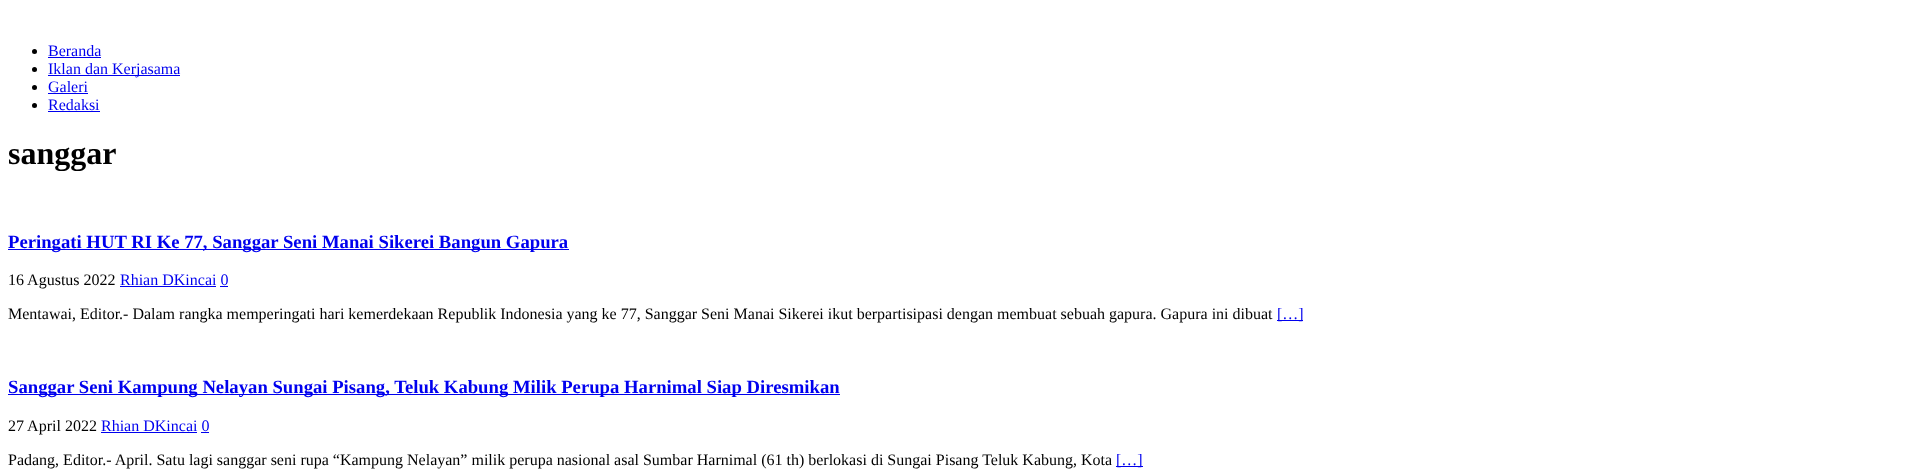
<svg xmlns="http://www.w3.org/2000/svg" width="1927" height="472">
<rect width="100%" height="100%" fill="#fff"/>
<circle cx="34.5" cy="51.5" r="2.5" fill="#000"/>
<text x="48" y="56" style="font-family:Liberation Serif;font-size:16px;fill:#00e">Beranda</text>
<rect x="48" y="57" width="53" height="1" fill="#00e"/>
<circle cx="34.5" cy="69.5" r="2.5" fill="#000"/>
<rect x="48" y="75" width="132" height="1" fill="#00e"/>
<text x="48" y="74" style="font-family:Liberation Serif;font-size:16px;fill:#00e">Iklan dan Kerjasama</text>
<circle cx="34.5" cy="87.5" r="2.5" fill="#000"/>
<text x="48" y="92" style="font-family:Liberation Serif;font-size:16px;fill:#00e">Galeri</text>
<rect x="48" y="93" width="40" height="1" fill="#00e"/>
<circle cx="34.5" cy="105.5" r="2.5" fill="#000"/>
<text x="48" y="110" style="font-family:Liberation Serif;font-size:16px;fill:#00e">Redaksi</text>
<rect x="48" y="111" width="52" height="1" fill="#00e"/>
<text x="8" y="164" style="font-family:Liberation Serif;font-size:32px;font-weight:bold;fill:#000">sanggar</text>
<rect x="8" y="249" width="561" height="1" fill="#00e"/>
<text x="8" y="248" style="font-family:Liberation Serif;font-size:18.7px;font-weight:bold;fill:#00e">Peringati HUT RI Ke 77, Sanggar Seni Manai Sikerei Bangun Gapura</text>
<text x="8" y="285" style="font-family:Liberation Serif;font-size:16px;fill:#000">16 Agustus 2022</text>
<text x="120" y="285" style="font-family:Liberation Serif;font-size:16px;fill:#00e">Rhian DKincai 0</text>
<rect x="120" y="286" width="96" height="1" fill="#00e"/>
<rect x="220" y="286" width="8" height="1" fill="#00e"/>
<text x="8" y="319" style="font-family:Liberation Serif;font-size:16px;fill:#000">Mentawai, Editor.- Dalam rangka memperingati hari kemerdekaan Republik Indonesia yang ke 77, Sanggar Seni Manai Sikerei ikut berpartisipasi dengan membuat sebuah gapura. Gapura ini dibuat</text>
<rect x="1277" y="320" width="26" height="1" fill="#00e"/>
<text x="1277" y="319" style="font-family:Liberation Serif;font-size:16px;fill:#00e">[…]</text>
<rect x="8" y="394" width="832" height="1" fill="#00e"/>
<text x="8" y="393" style="font-family:Liberation Serif;font-size:18.7px;font-weight:bold;fill:#00e">Sanggar Seni Kampung Nelayan Sungai Pisang, Teluk Kabung Milik Perupa Harnimal Siap Diresmikan</text>
<text x="8" y="431" style="font-family:Liberation Serif;font-size:16px;fill:#000">27 April 2022</text>
<text x="101" y="431" style="font-family:Liberation Serif;font-size:16px;fill:#00e">Rhian DKincai 0</text>
<rect x="101" y="432" width="96" height="1" fill="#00e"/>
<rect x="201" y="432" width="8" height="1" fill="#00e"/>
<text x="8" y="465" style="font-family:Liberation Serif;font-size:16px;fill:#000">Padang, Editor.- April. Satu lagi sanggar seni rupa “Kampung Nelayan” milik perupa nasional asal Sumbar Harnimal (61 th) berlokasi di Sungai Pisang Teluk Kabung, Kota</text>
<rect x="1116" y="466" width="27" height="1" fill="#00e"/>
<text x="1116" y="465" style="font-family:Liberation Serif;font-size:16px;fill:#00e">[…]</text>
</svg>
